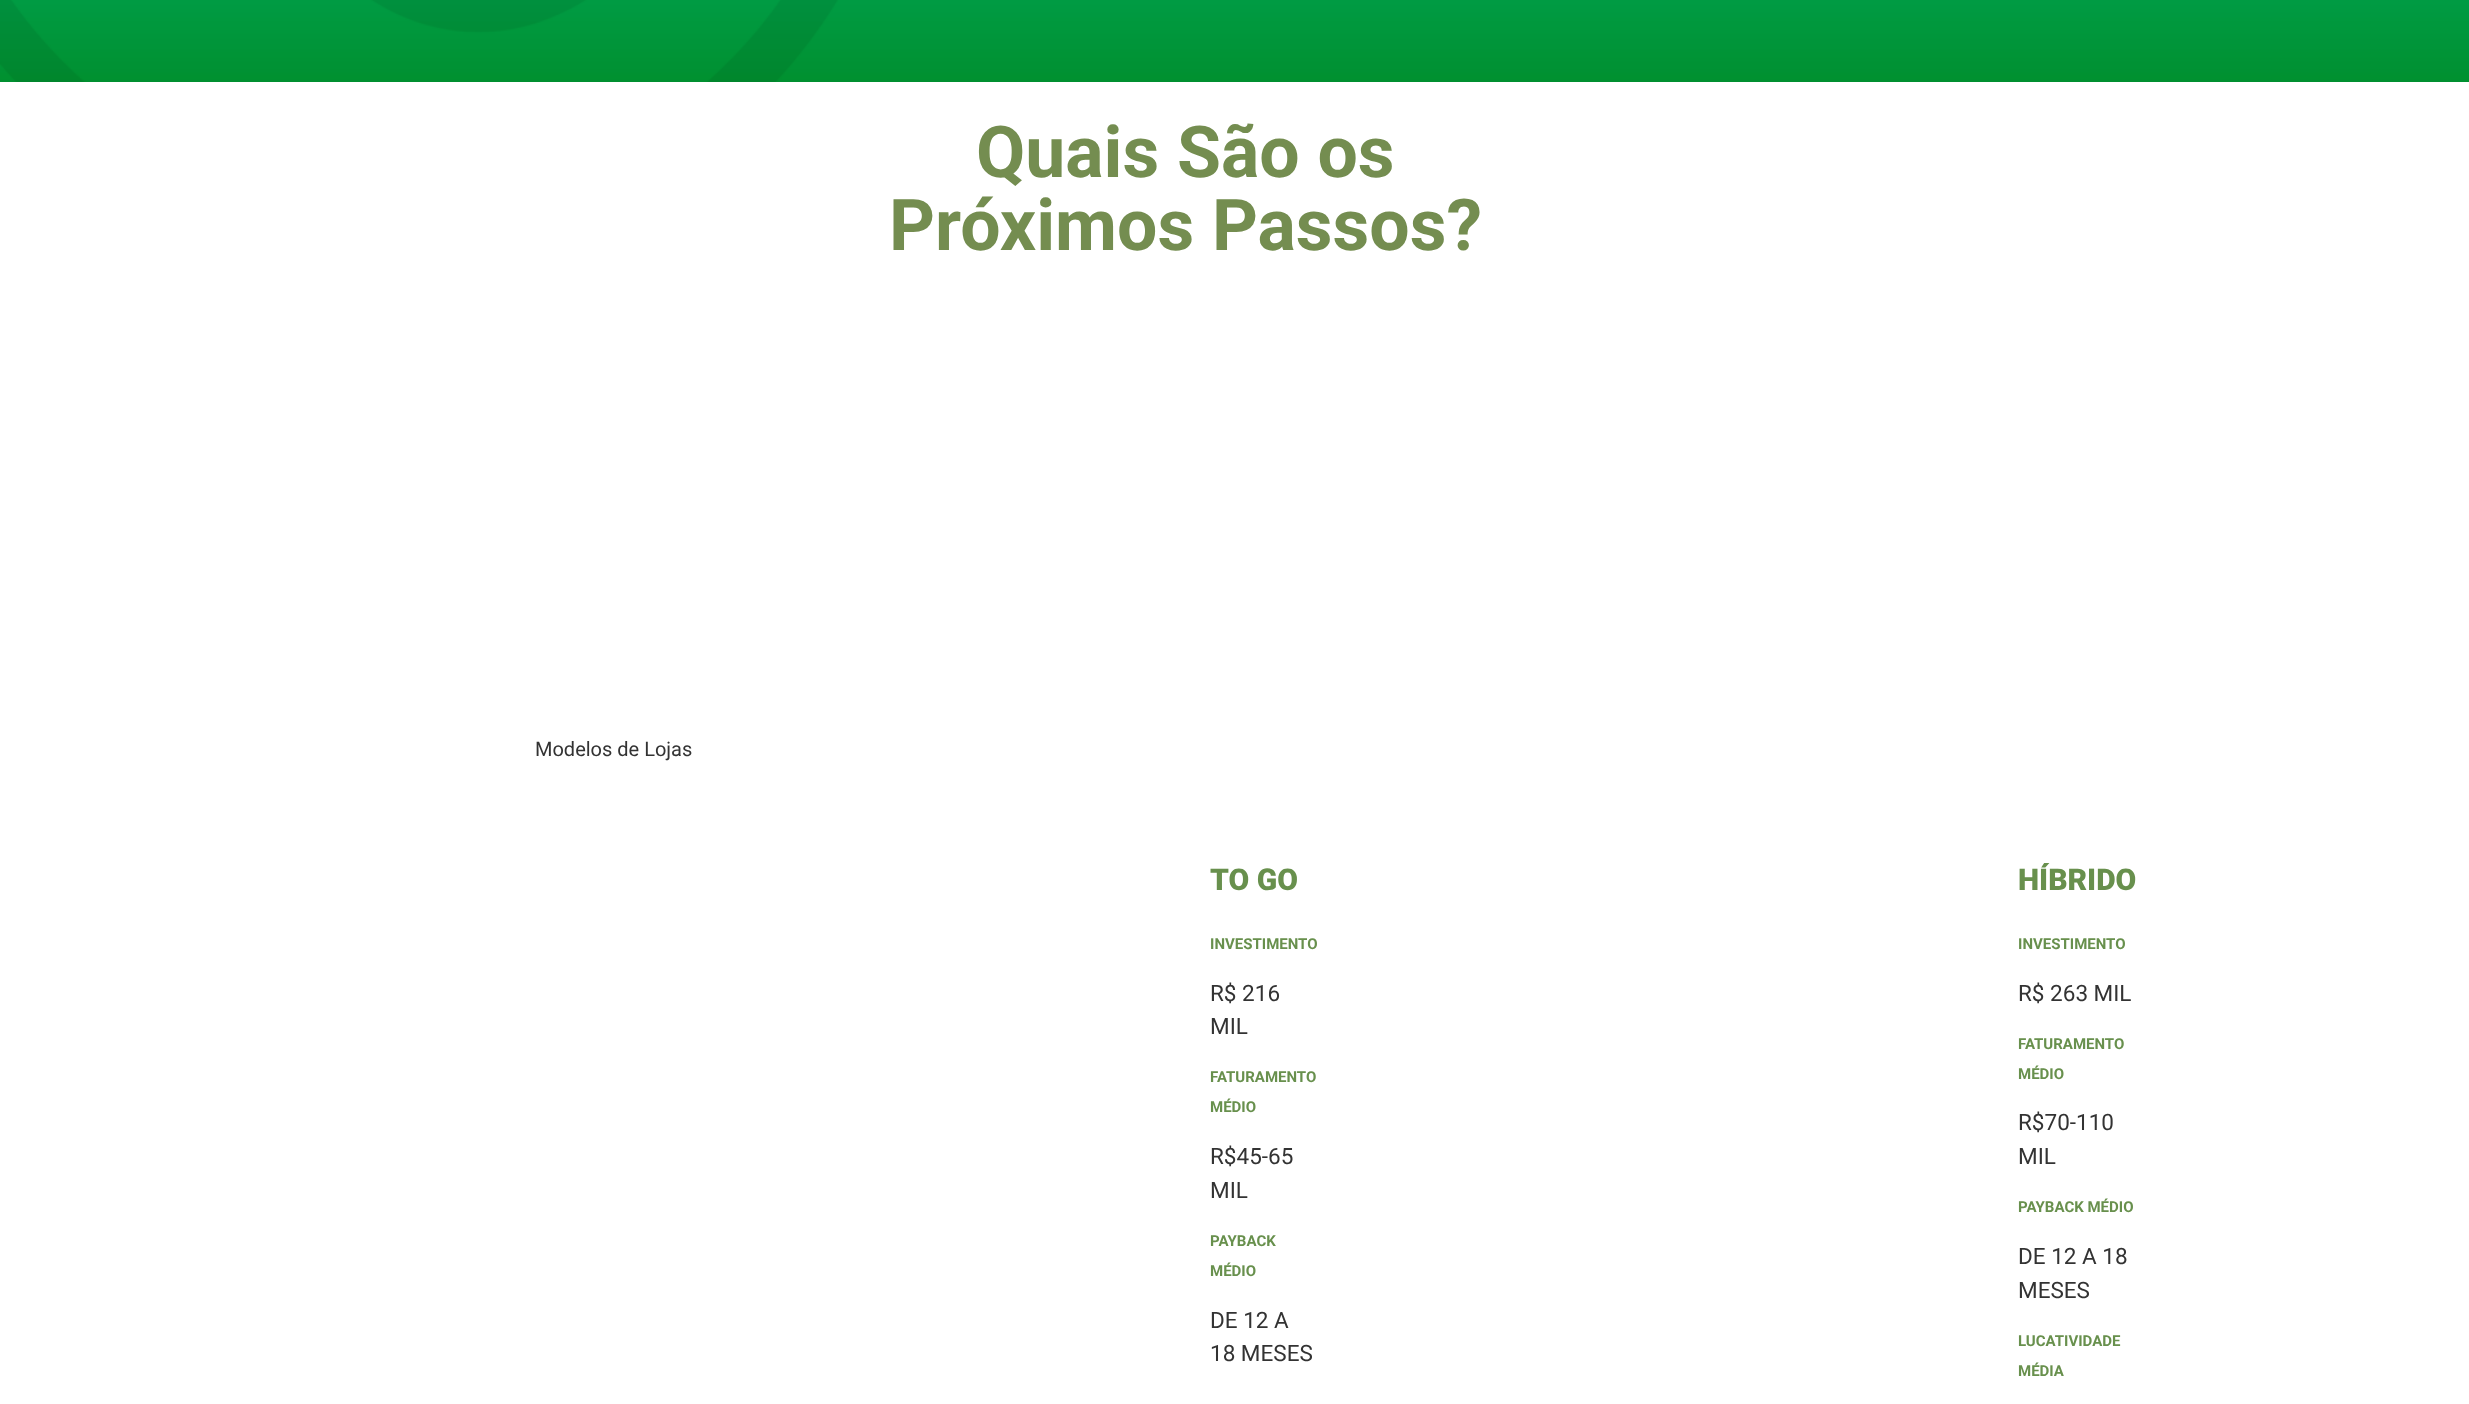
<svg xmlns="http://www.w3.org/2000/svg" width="2469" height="1404">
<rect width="100%" height="100%" fill="#fff"/>
<image x="0" y="0" width="2469" height="82" href="media/1.png"/>
<text x="976" y="177" style="font-family:Roboto;font-size:71.5px;font-weight:bold;fill:#748d50">Quais São os</text>
<text x="889" y="250" style="font-family:Roboto;font-size:71.5px;font-weight:bold;fill:#748d50">Próximos Passos?</text>
<text x="535" y="756" style="font-family:Roboto;font-size:20px;fill:#333">Modelos de Lojas</text>
<text x="1210" y="890" style="font-family:Roboto;font-size:30px;font-weight:900;fill:#68904d">TO GO</text>
<text x="1210" y="949" style="font-family:Roboto;font-size:15px;font-weight:bold;fill:#68904d">INVESTIMENTO</text>
<text x="1210" y="1001" style="font-family:Roboto;font-size:22.5px;fill:#333">R$ 216</text>
<text x="1210" y="1034" style="font-family:Roboto;font-size:22.5px;fill:#333">MIL</text>
<text x="1210" y="1082" style="font-family:Roboto;font-size:15px;font-weight:bold;fill:#68904d">FATURAMENTO</text>
<text x="1210" y="1112" style="font-family:Roboto;font-size:15px;font-weight:bold;fill:#68904d">MÉDIO</text>
<text x="1210" y="1164" style="font-family:Roboto;font-size:22.5px;fill:#333">R$45-65</text>
<text x="1210" y="1198" style="font-family:Roboto;font-size:22.5px;fill:#333">MIL</text>
<text x="1210" y="1246" style="font-family:Roboto;font-size:15px;font-weight:bold;fill:#68904d">PAYBACK</text>
<text x="1210" y="1276" style="font-family:Roboto;font-size:15px;font-weight:bold;fill:#68904d">MÉDIO</text>
<text x="1210" y="1328" style="font-family:Roboto;font-size:22.5px;fill:#333">DE 12 A</text>
<text x="1210" y="1361" style="font-family:Roboto;font-size:22.5px;fill:#333">18 MESES</text>
<text x="2018" y="890" style="font-family:Roboto;font-size:30px;font-weight:900;fill:#68904d">HÍBRIDO</text>
<text x="2018" y="949" style="font-family:Roboto;font-size:15px;font-weight:bold;fill:#68904d">INVESTIMENTO</text>
<text x="2018" y="1001" style="font-family:Roboto;font-size:22.5px;fill:#333">R$ 263 MIL</text>
<text x="2018" y="1049" style="font-family:Roboto;font-size:15px;font-weight:bold;fill:#68904d">FATURAMENTO</text>
<text x="2018" y="1079" style="font-family:Roboto;font-size:15px;font-weight:bold;fill:#68904d">MÉDIO</text>
<text x="2018" y="1130" style="font-family:Roboto;font-size:22.5px;fill:#333">R$70-110</text>
<text x="2018" y="1164" style="font-family:Roboto;font-size:22.5px;fill:#333">MIL</text>
<text x="2018" y="1212" style="font-family:Roboto;font-size:15px;font-weight:bold;fill:#68904d">PAYBACK MÉDIO</text>
<text x="2018" y="1264" style="font-family:Roboto;font-size:22.5px;fill:#333">DE 12 A 18</text>
<text x="2018" y="1298" style="font-family:Roboto;font-size:22.5px;fill:#333">MESES</text>
<text x="2018" y="1346" style="font-family:Roboto;font-size:15px;font-weight:bold;fill:#68904d">LUCATIVIDADE</text>
<text x="2018" y="1376" style="font-family:Roboto;font-size:15px;font-weight:bold;fill:#68904d">MÉDIA</text>
</svg>
